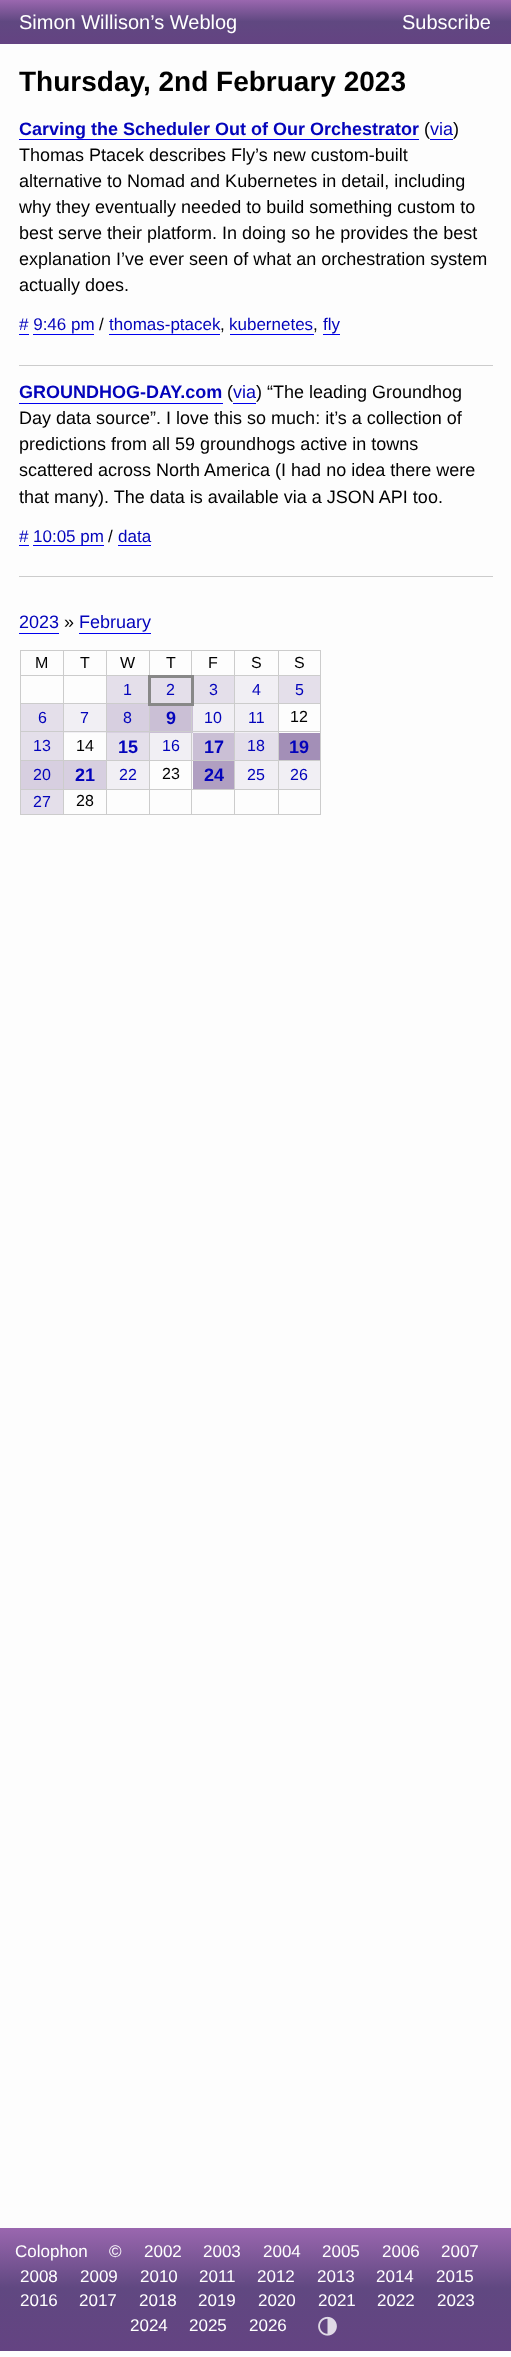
<svg xmlns="http://www.w3.org/2000/svg" width="511" height="2357">
<defs>
<linearGradient id="g1" gradientUnits="userSpaceOnUse" x1="256" y1="0" x2="256" y2="44"><stop offset="0" stop-color="#9a67af"/><stop offset="0.49" stop-color="#604881"/><stop offset="1" stop-color="#644382"/></linearGradient>
<linearGradient id="g2" gradientUnits="userSpaceOnUse" x1="256" y1="2228" x2="256" y2="2351"><stop offset="0" stop-color="#9a67af"/><stop offset="0.49" stop-color="#604881"/><stop offset="1" stop-color="#644382"/></linearGradient>
</defs>
<rect width="100%" height="100%" fill="#fdfdfd"/>
<rect width="511" height="44" fill="url(#g1)"/>
<text x="19" y="29" style="font-family:Liberation Sans;font-size:20px;fill:#fff">Simon Willison’s Weblog</text>
<text x="402" y="29" style="font-family:Liberation Sans;font-size:20px;fill:#fff">Subscribe</text>
<text x="19" y="91" style="font-family:Liberation Sans;font-size:28px;font-weight:bold;fill:#000">Thursday, 2nd February 2023</text>
<rect x="19" y="365" width="474" height="1" fill="#ccc"/>
<text x="19" y="135" style="font-family:Liberation Sans;font-size:18px;font-weight:bold;fill:#0303bb">Carving the Scheduler Out of Our Orchestrator</text>
<rect x="19" y="139" width="400" height="1" fill="#00e"/>
<text x="424" y="135" style="font-family:Liberation Sans;font-size:18px;fill:#000">(</text>
<text x="430" y="135" style="font-family:Liberation Sans;font-size:18px;fill:#0303bb">via</text>
<rect x="430" y="139" width="23" height="1" fill="#00e"/>
<text x="453" y="135" style="font-family:Liberation Sans;font-size:18px;fill:#000">)</text>
<text x="19" y="161" style="font-family:Liberation Sans;font-size:18px;fill:#000">Thomas Ptacek describes Fly’s new custom-built</text>
<text x="19" y="187" style="font-family:Liberation Sans;font-size:18px;fill:#000">alternative to Nomad and Kubernetes in detail, including</text>
<text x="19" y="213" style="font-family:Liberation Sans;font-size:18px;fill:#000">why they eventually needed to build something custom to</text>
<text x="19" y="239" style="font-family:Liberation Sans;font-size:18px;fill:#000">best serve their platform. In doing so he provides the best</text>
<text x="19" y="265" style="font-family:Liberation Sans;font-size:18px;fill:#000">explanation I’ve ever seen of what an orchestration system</text>
<text x="19" y="291" style="font-family:Liberation Sans;font-size:18px;fill:#000">actually does.</text>
<text x="19" y="330" style="font-family:Liberation Sans;font-size:17px;fill:#0303bb"># 9:46 pm</text>
<rect x="19" y="334" width="10" height="1" fill="#00e"/>
<text x="99" y="330" style="font-family:Liberation Sans;font-size:17px;fill:#000">/</text>
<text x="109" y="330" style="font-family:Liberation Sans;font-size:17px;fill:#0303bb">thomas-ptacek</text>
<rect x="109" y="334" width="111" height="1" fill="#00e"/>
<text x="220" y="330" style="font-family:Liberation Sans;font-size:17px;fill:#000">,</text>
<text x="229" y="330" style="font-family:Liberation Sans;font-size:17px;fill:#0303bb">kubernetes</text>
<rect x="230" y="334" width="84" height="1" fill="#00e"/>
<text x="313" y="330" style="font-family:Liberation Sans;font-size:17px;fill:#000">,</text>
<text x="323" y="330" style="font-family:Liberation Sans;font-size:17px;fill:#0303bb">fly</text>
<rect x="323" y="334" width="17" height="1" fill="#00e"/>
<rect x="33" y="334" width="61" height="1" fill="#00e"/>
<rect x="19" y="576" width="474" height="1" fill="#ccc"/>
<text x="19" y="398" style="font-family:Liberation Sans;font-size:18px;font-weight:bold;fill:#0303bb">GROUNDHOG-DAY.com</text>
<rect x="19" y="403" width="204" height="1" fill="#00e"/>
<text x="227" y="398" style="font-family:Liberation Sans;font-size:18px;fill:#000">(</text>
<text x="233" y="398" style="font-family:Liberation Sans;font-size:18px;fill:#0303bb">via</text>
<rect x="233" y="403" width="23" height="1" fill="#00e"/>
<text x="256" y="398" style="font-family:Liberation Sans;font-size:18px;fill:#000">) “The leading Groundhog</text>
<text x="19" y="424" style="font-family:Liberation Sans;font-size:18px;fill:#000">Day data source”. I love this so much: it’s a collection of</text>
<text x="19" y="450" style="font-family:Liberation Sans;font-size:18px;fill:#000">predictions from all 59 groundhogs active in towns</text>
<text x="19" y="476" style="font-family:Liberation Sans;font-size:18px;fill:#000">scattered across North America (I had no idea there were</text>
<text x="19" y="503" style="font-family:Liberation Sans;font-size:18px;fill:#000">that many). The data is available via a JSON API too.</text>
<text x="19" y="542" style="font-family:Liberation Sans;font-size:17px;fill:#0303bb">#</text>
<rect x="19" y="545" width="10" height="1" fill="#00e"/>
<rect x="33" y="545" width="71" height="1" fill="#00e"/>
<text x="33" y="542" style="font-family:Liberation Sans;font-size:17px;fill:#0303bb">10:05 pm</text>
<text x="108" y="542" style="font-family:Liberation Sans;font-size:17px;fill:#000">/</text>
<text x="118" y="542" style="font-family:Liberation Sans;font-size:17px;fill:#0303bb">data</text>
<rect x="118" y="545" width="33" height="1" fill="#00e"/>
<text x="19" y="628" style="font-family:Liberation Sans;font-size:18px;fill:#0303bb">2023</text>
<rect x="19" y="633" width="40" height="1" fill="#00e"/>
<text x="64" y="628" style="font-family:Liberation Sans;font-size:18px;fill:#000">»</text>
<text x="79" y="628" style="font-family:Liberation Sans;font-size:18px;fill:#0303bb">February</text>
<rect x="79" y="633" width="72" height="1" fill="#00e"/>
<rect x="20" y="650" width="301" height="1" fill="#ccc"/>
<rect x="320" y="650" width="1" height="165" fill="#ccc"/>
<rect x="20" y="814" width="301" height="1" fill="#ccc"/>
<rect x="20" y="650" width="1" height="165" fill="#ccc"/>
<text x="35" y="668" style="font-family:Liberation Sans;font-size:16px;fill:#000">M</text>
<rect x="106" y="675" width="44" height="1" fill="#ccc"/>
<rect x="107" y="704" width="42" height="29" fill="#d7cfe0"/>
<rect x="150" y="706" width="43" height="27" fill="#cabfd5"/>
<rect x="193" y="704" width="41" height="29" fill="#f1eff4"/>
<rect x="235" y="704" width="43" height="29" fill="#f1eff4"/>
<rect x="278" y="731" width="43" height="1" fill="#ccc"/>
<rect x="278" y="760" width="43" height="1" fill="#ccc"/>
<rect x="278" y="789" width="43" height="1" fill="#ccc"/>
<rect x="278" y="789" width="1" height="26" fill="#ccc"/>
<rect x="234" y="789" width="45" height="1" fill="#ccc"/>
<rect x="278" y="760" width="1" height="30" fill="#ccc"/>
<rect x="234" y="760" width="45" height="1" fill="#ccc"/>
<rect x="278" y="731" width="1" height="30" fill="#ccc"/>
<rect x="234" y="731" width="45" height="1" fill="#ccc"/>
<rect x="234" y="789" width="1" height="26" fill="#ccc"/>
<rect x="191" y="789" width="44" height="1" fill="#ccc"/>
<rect x="234" y="760" width="1" height="30" fill="#ccc"/>
<rect x="191" y="760" width="44" height="1" fill="#ccc"/>
<rect x="234" y="731" width="1" height="30" fill="#ccc"/>
<rect x="191" y="731" width="44" height="1" fill="#ccc"/>
<rect x="150" y="733" width="43" height="27" fill="#f1eff4"/>
<rect x="191" y="789" width="1" height="26" fill="#ccc"/>
<rect x="149" y="789" width="44" height="1" fill="#ccc"/>
<rect x="191" y="760" width="1" height="30" fill="#ccc"/>
<rect x="149" y="760" width="44" height="1" fill="#ccc"/>
<rect x="191" y="731" width="1" height="30" fill="#ccc"/>
<rect x="149" y="731" width="44" height="1" fill="#ccc"/>
<rect x="149" y="789" width="1" height="26" fill="#ccc"/>
<rect x="106" y="789" width="44" height="1" fill="#ccc"/>
<rect x="149" y="760" width="1" height="30" fill="#ccc"/>
<rect x="106" y="760" width="44" height="1" fill="#ccc"/>
<rect x="149" y="731" width="1" height="30" fill="#ccc"/>
<rect x="106" y="731" width="44" height="1" fill="#ccc"/>
<rect x="149" y="703" width="1" height="30" fill="#ccc"/>
<rect x="106" y="703" width="44" height="1" fill="#ccc"/>
<rect x="64" y="704" width="42" height="29" fill="#f1eff4"/>
<rect x="106" y="789" width="1" height="26" fill="#ccc"/>
<rect x="63" y="789" width="45" height="1" fill="#ccc"/>
<rect x="106" y="760" width="1" height="30" fill="#ccc"/>
<rect x="63" y="760" width="45" height="1" fill="#ccc"/>
<rect x="106" y="731" width="1" height="30" fill="#ccc"/>
<rect x="63" y="731" width="45" height="1" fill="#ccc"/>
<rect x="106" y="703" width="1" height="30" fill="#ccc"/>
<rect x="63" y="703" width="45" height="1" fill="#ccc"/>
<rect x="106" y="675" width="1" height="29" fill="#ccc"/>
<rect x="63" y="675" width="45" height="1" fill="#ccc"/>
<rect x="21" y="704" width="42" height="56" fill="#e4dfea"/>
<rect x="63" y="789" width="1" height="26" fill="#ccc"/>
<rect x="20" y="789" width="44" height="1" fill="#ccc"/>
<rect x="63" y="760" width="1" height="30" fill="#ccc"/>
<rect x="20" y="760" width="44" height="1" fill="#ccc"/>
<rect x="63" y="731" width="1" height="30" fill="#ccc"/>
<rect x="20" y="731" width="44" height="1" fill="#ccc"/>
<rect x="63" y="703" width="1" height="30" fill="#ccc"/>
<rect x="20" y="703" width="44" height="1" fill="#ccc"/>
<rect x="63" y="675" width="1" height="29" fill="#ccc"/>
<rect x="20" y="675" width="44" height="1" fill="#ccc"/>
<rect x="63" y="650" width="1" height="26" fill="#ccc"/>
<text x="80" y="668" style="font-family:Liberation Sans;font-size:16px;fill:#000">T</text>
<rect x="106" y="650" width="1" height="26" fill="#ccc"/>
<text x="120" y="668" style="font-family:Liberation Sans;font-size:16px;fill:#000">W</text>
<rect x="149" y="650" width="1" height="26" fill="#ccc"/>
<text x="166" y="668" style="font-family:Liberation Sans;font-size:16px;fill:#000">T</text>
<rect x="278" y="675" width="43" height="1" fill="#ccc"/>
<rect x="278" y="703" width="43" height="1" fill="#ccc"/>
<rect x="278" y="703" width="1" height="30" fill="#ccc"/>
<rect x="234" y="703" width="45" height="1" fill="#ccc"/>
<rect x="278" y="675" width="1" height="29" fill="#ccc"/>
<rect x="234" y="675" width="45" height="1" fill="#ccc"/>
<rect x="234" y="703" width="1" height="30" fill="#ccc"/>
<rect x="191" y="703" width="44" height="1" fill="#ccc"/>
<rect x="234" y="675" width="1" height="29" fill="#ccc"/>
<rect x="191" y="675" width="44" height="1" fill="#ccc"/>
<rect x="191" y="650" width="1" height="26" fill="#ccc"/>
<text x="208" y="668" style="font-family:Liberation Sans;font-size:16px;fill:#000">F</text>
<rect x="234" y="650" width="1" height="26" fill="#ccc"/>
<text x="251" y="668" style="font-family:Liberation Sans;font-size:16px;fill:#000">S</text>
<rect x="278" y="650" width="1" height="26" fill="#ccc"/>
<text x="294" y="668" style="font-family:Liberation Sans;font-size:16px;fill:#000">S</text>
<rect x="107" y="676" width="41" height="27" fill="#e4dfea"/>
<text x="123" y="695" style="font-family:Liberation Sans;font-size:16px;fill:#0303bb">1</text>
<rect x="151" y="678" width="40" height="25" fill="#e4dfea"/>
<rect x="148" y="675" width="46" height="3" fill="#888"/>
<rect x="191" y="703" width="1" height="30" fill="#ccc"/>
<rect x="191" y="675" width="3" height="30" fill="#888"/>
<rect x="148" y="703" width="46" height="3" fill="#888"/>
<rect x="148" y="675" width="3" height="30" fill="#888"/>
<text x="166" y="695" style="font-family:Liberation Sans;font-size:16px;fill:#0303bb">2</text>
<rect x="194" y="676" width="40" height="27" fill="#e4dfea"/>
<text x="209" y="695" style="font-family:Liberation Sans;font-size:16px;fill:#0303bb">3</text>
<rect x="235" y="676" width="43" height="27" fill="#f1eff4"/>
<text x="252" y="695" style="font-family:Liberation Sans;font-size:16px;fill:#0303bb">4</text>
<rect x="279" y="676" width="41" height="27" fill="#e4dfea"/>
<text x="295" y="695" style="font-family:Liberation Sans;font-size:16px;fill:#0303bb">5</text>
<text x="38" y="723" style="font-family:Liberation Sans;font-size:16px;fill:#0303bb">6</text>
<text x="80" y="723" style="font-family:Liberation Sans;font-size:16px;fill:#0303bb">7</text>
<text x="123" y="723" style="font-family:Liberation Sans;font-size:16px;fill:#0303bb">8</text>
<text x="166" y="724" style="font-family:Liberation Sans;font-size:18px;font-weight:bold;fill:#0303bb">9</text>
<text x="204" y="723" style="font-family:Liberation Sans;font-size:16px;fill:#0303bb">10</text>
<text x="248" y="723" style="font-family:Liberation Sans;font-size:16px;fill:#0303bb">11</text>
<text x="290" y="722" style="font-family:Liberation Sans;font-size:16px;fill:#000">12</text>
<text x="33" y="751" style="font-family:Liberation Sans;font-size:16px;fill:#0303bb">13</text>
<text x="76" y="751" style="font-family:Liberation Sans;font-size:16px;fill:#000">14</text>
<rect x="107" y="733" width="42" height="27" fill="#e4dfea"/>
<text x="118" y="753" style="font-family:Liberation Sans;font-size:18px;font-weight:bold;fill:#0303bb">15</text>
<text x="162" y="751" style="font-family:Liberation Sans;font-size:16px;fill:#0303bb">16</text>
<rect x="193" y="733" width="41" height="27" fill="#cabfd5"/>
<text x="204" y="753" style="font-family:Liberation Sans;font-size:18px;font-weight:bold;fill:#0303bb">17</text>
<rect x="235" y="733" width="43" height="27" fill="#e4dfea"/>
<text x="247" y="751" style="font-family:Liberation Sans;font-size:16px;fill:#0303bb">18</text>
<rect x="279" y="733" width="41" height="27" fill="#a38fb7"/>
<text x="289" y="753" style="font-family:Liberation Sans;font-size:18px;font-weight:bold;fill:#0303bb">19</text>
<rect x="21" y="761" width="42" height="28" fill="#d7cfe0"/>
<text x="33" y="780" style="font-family:Liberation Sans;font-size:16px;fill:#0303bb">20</text>
<rect x="64" y="761" width="42" height="28" fill="#d7cfe0"/>
<text x="75" y="781" style="font-family:Liberation Sans;font-size:18px;font-weight:bold;fill:#0303bb">21</text>
<rect x="107" y="761" width="42" height="28" fill="#f1eff4"/>
<text x="119" y="780" style="font-family:Liberation Sans;font-size:16px;fill:#0303bb">22</text>
<text x="162" y="779" style="font-family:Liberation Sans;font-size:16px;fill:#000">23</text>
<rect x="193" y="761" width="41" height="28" fill="#b09fc1"/>
<text x="204" y="781" style="font-family:Liberation Sans;font-size:18px;font-weight:bold;fill:#0303bb">24</text>
<rect x="235" y="761" width="43" height="28" fill="#f1eff4"/>
<text x="247" y="780" style="font-family:Liberation Sans;font-size:16px;fill:#0303bb">25</text>
<rect x="279" y="761" width="41" height="28" fill="#f1eff4"/>
<text x="290" y="780" style="font-family:Liberation Sans;font-size:16px;fill:#0303bb">26</text>
<rect x="21" y="790" width="42" height="24" fill="#e4dfea"/>
<text x="33" y="807" style="font-family:Liberation Sans;font-size:16px;fill:#0303bb">27</text>
<text x="76" y="806" style="font-family:Liberation Sans;font-size:16px;fill:#000">28</text>
<rect y="2228" width="511" height="123" fill="url(#g2)"/>
<text x="15" y="2257" style="font-family:Liberation Sans;font-size:17px;fill:#fff">Colophon</text>
<text x="109" y="2257" style="font-family:Liberation Sans;font-size:17px;fill:#fff">©</text>
<text x="144" y="2257" style="font-family:Liberation Sans;font-size:17px;fill:#fff">2002</text>
<text x="203" y="2257" style="font-family:Liberation Sans;font-size:17px;fill:#fff">2003</text>
<text x="263" y="2257" style="font-family:Liberation Sans;font-size:17px;fill:#fff">2004</text>
<text x="322" y="2257" style="font-family:Liberation Sans;font-size:17px;fill:#fff">2005</text>
<text x="382" y="2257" style="font-family:Liberation Sans;font-size:17px;fill:#fff">2006</text>
<text x="441" y="2257" style="font-family:Liberation Sans;font-size:17px;fill:#fff">2007</text>
<text x="20" y="2282" style="font-family:Liberation Sans;font-size:17px;fill:#fff">2008</text>
<text x="80" y="2282" style="font-family:Liberation Sans;font-size:17px;fill:#fff">2009</text>
<text x="140" y="2282" style="font-family:Liberation Sans;font-size:17px;fill:#fff">2010</text>
<text x="199" y="2282" style="font-family:Liberation Sans;font-size:17px;fill:#fff">2011</text>
<text x="257" y="2282" style="font-family:Liberation Sans;font-size:17px;fill:#fff">2012</text>
<text x="317" y="2282" style="font-family:Liberation Sans;font-size:17px;fill:#fff">2013</text>
<text x="376" y="2282" style="font-family:Liberation Sans;font-size:17px;fill:#fff">2014</text>
<text x="436" y="2282" style="font-family:Liberation Sans;font-size:17px;fill:#fff">2015</text>
<text x="20" y="2306" style="font-family:Liberation Sans;font-size:17px;fill:#fff">2016</text>
<text x="79" y="2306" style="font-family:Liberation Sans;font-size:17px;fill:#fff">2017</text>
<text x="139" y="2306" style="font-family:Liberation Sans;font-size:17px;fill:#fff">2018</text>
<text x="198" y="2306" style="font-family:Liberation Sans;font-size:17px;fill:#fff">2019</text>
<text x="258" y="2306" style="font-family:Liberation Sans;font-size:17px;fill:#fff">2020</text>
<text x="318" y="2306" style="font-family:Liberation Sans;font-size:17px;fill:#fff">2021</text>
<text x="377" y="2306" style="font-family:Liberation Sans;font-size:17px;fill:#fff">2022</text>
<text x="437" y="2306" style="font-family:Liberation Sans;font-size:17px;fill:#fff">2023</text>
<text x="130" y="2331" style="font-family:Liberation Sans;font-size:17px;fill:#fff">2024</text>
<text x="189" y="2331" style="font-family:Liberation Sans;font-size:17px;fill:#fff">2025</text>
<text x="249" y="2331" style="font-family:Liberation Sans;font-size:17px;fill:#fff">2026</text>
<image x="318" y="2316" width="19" height="20" href="media/1.png"/>
</svg>
